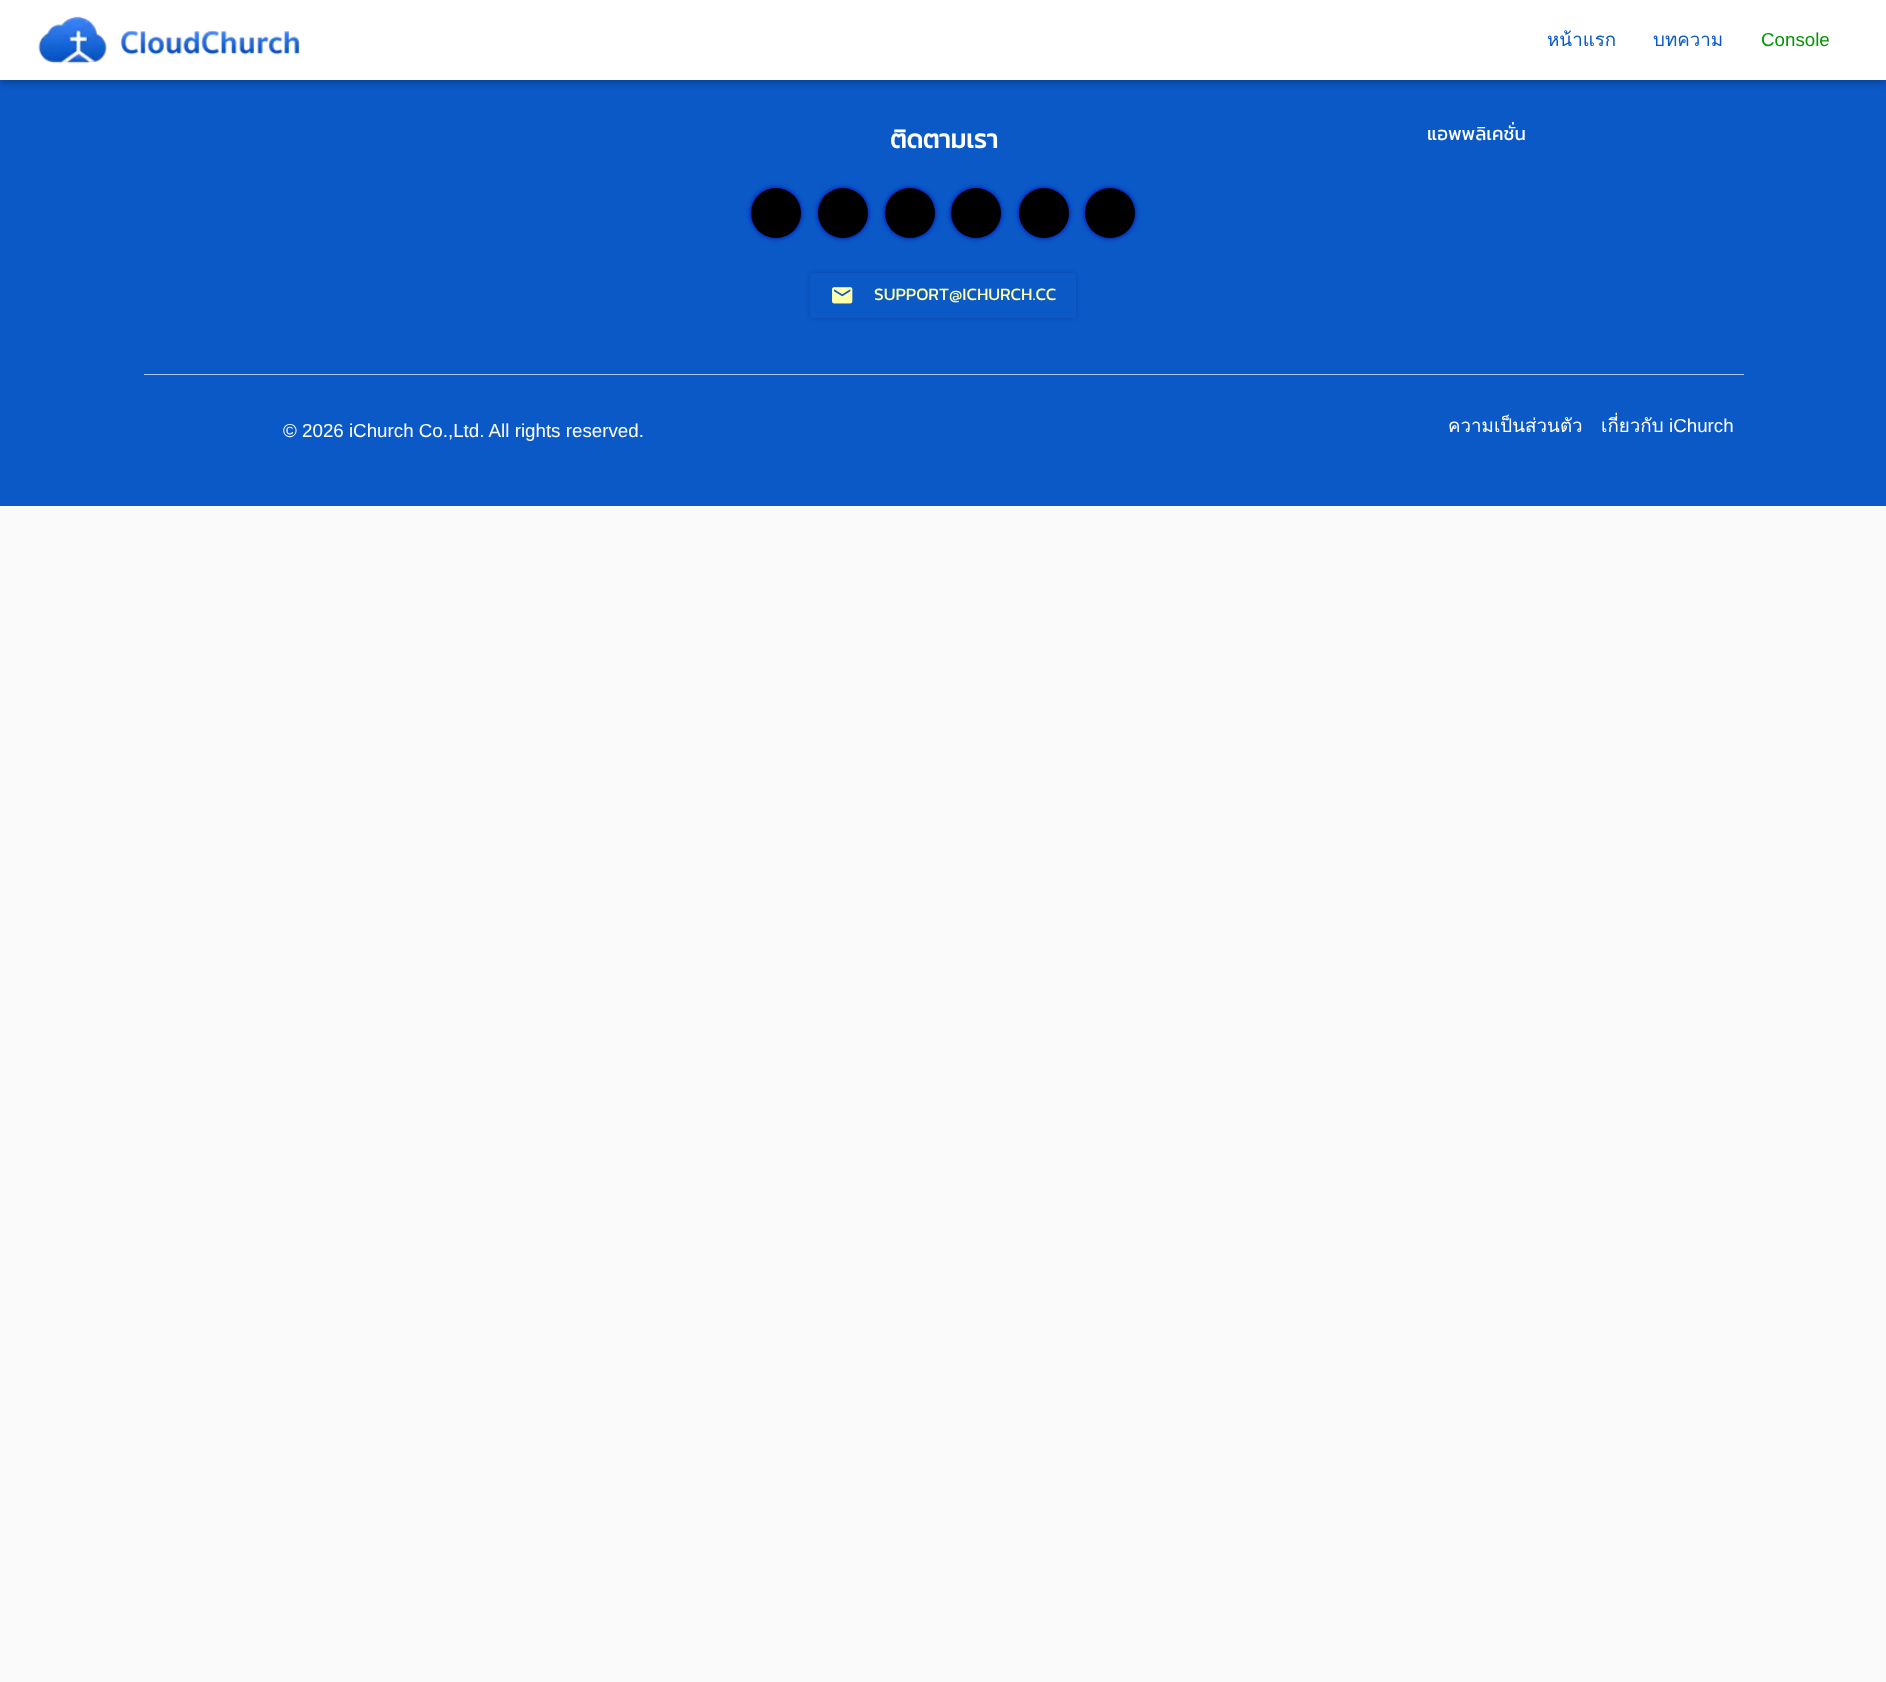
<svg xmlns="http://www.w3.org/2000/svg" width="1886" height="1682">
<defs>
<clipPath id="clip1"><path d="M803 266h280v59h-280zm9.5 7h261c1.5 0 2.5 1 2.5 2.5v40c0 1.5-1 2.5-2.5 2.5h-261c-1.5 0-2.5-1-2.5-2.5v-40c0-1.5 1-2.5 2.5-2.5z" clip-rule="evenodd"/></clipPath>
</defs>
<rect width="100%" height="100%" fill="#fafafa"/>
<rect y="80" width="1886" height="426" fill="#0b59c7"/>
<rect y="3" width="1886" height="80" fill="#00000040" filter="blur(3px)"/>
<rect width="1886" height="80" fill="#fff"/>
<image x="38" y="16" width="262" height="48" href="media/1.png"/>
<text x="1547" y="46" style="font-family:Loma;font-size:18.75px;fill:#0b59c7">หน้าแรก</text>
<text x="1653" y="46" style="font-family:Loma;font-size:18.75px;fill:#0b59c7">บทความ</text>
<text x="1761" y="46" style="font-family:Liberation Sans;font-size:18.75px;fill:#009501">Console</text>
<text x="890" y="148" style="font-family:Kanit;font-size:25.5px;font-weight:bold;fill:#fff">ติดตามเรา</text>
<rect x="751" y="188" width="50" height="50" rx="25" fill="#00a" filter="blur(2.5px)"/>
<circle cx="776" cy="213" r="25" fill="#000"/>
<rect x="818" y="188" width="50" height="50" rx="25" fill="#00a" filter="blur(2.5px)"/>
<circle cx="843" cy="213" r="25" fill="#000"/>
<rect x="885" y="188" width="50" height="50" rx="25" fill="#00a" filter="blur(2.5px)"/>
<circle cx="910" cy="213" r="25" fill="#000"/>
<rect x="951" y="188" width="50" height="50" rx="25" fill="#00a" filter="blur(2.5px)"/>
<circle cx="976" cy="213" r="25" fill="#000"/>
<rect x="1019" y="188" width="50" height="50" rx="25" fill="#00a" filter="blur(2.5px)"/>
<circle cx="1044" cy="213" r="25" fill="#000"/>
<rect x="1085" y="188" width="50" height="50" rx="25" fill="#00a" filter="blur(2.5px)"/>
<circle cx="1110" cy="213" r="25" fill="#000"/>
<g clip-path="url(#clip1)">
<rect x="810" y="273" width="266" height="45" rx="2.5" fill="#00000033" filter="blur(2px)"/>
</g>
<image x="832" y="287" width="21" height="17" href="media/2.png"/>
<text x="874" y="300" style="font-family:Kanit;font-size:17.5px;fill:#ffa">SUPPORT@ICHURCH.CC</text>
<text x="1427" y="140" style="font-family:Kanit;font-size:18.75px;fill:#fff">แอพพลิเคชั่น</text>
<rect x="144" y="374" width="1600" height="1" fill="#aec8ec"/>
<text x="283" y="437" style="font-family:Liberation Sans;font-size:18.75px;fill:#fff">© 2026 iChurch Co.,Ltd. All rights reserved.</text>
<text x="1448" y="432" style="font-family:Loma;font-size:18.75px;fill:#fff">ความเป็นส่วนตัว</text>
<text x="1601" y="432" style="font-family:Loma;font-size:18.75px;fill:#fff">เกี่ยวกับ</text>
<text x="1669" y="432" style="font-family:Liberation Sans;font-size:18.75px;fill:#fff">iChurch</text>
</svg>
